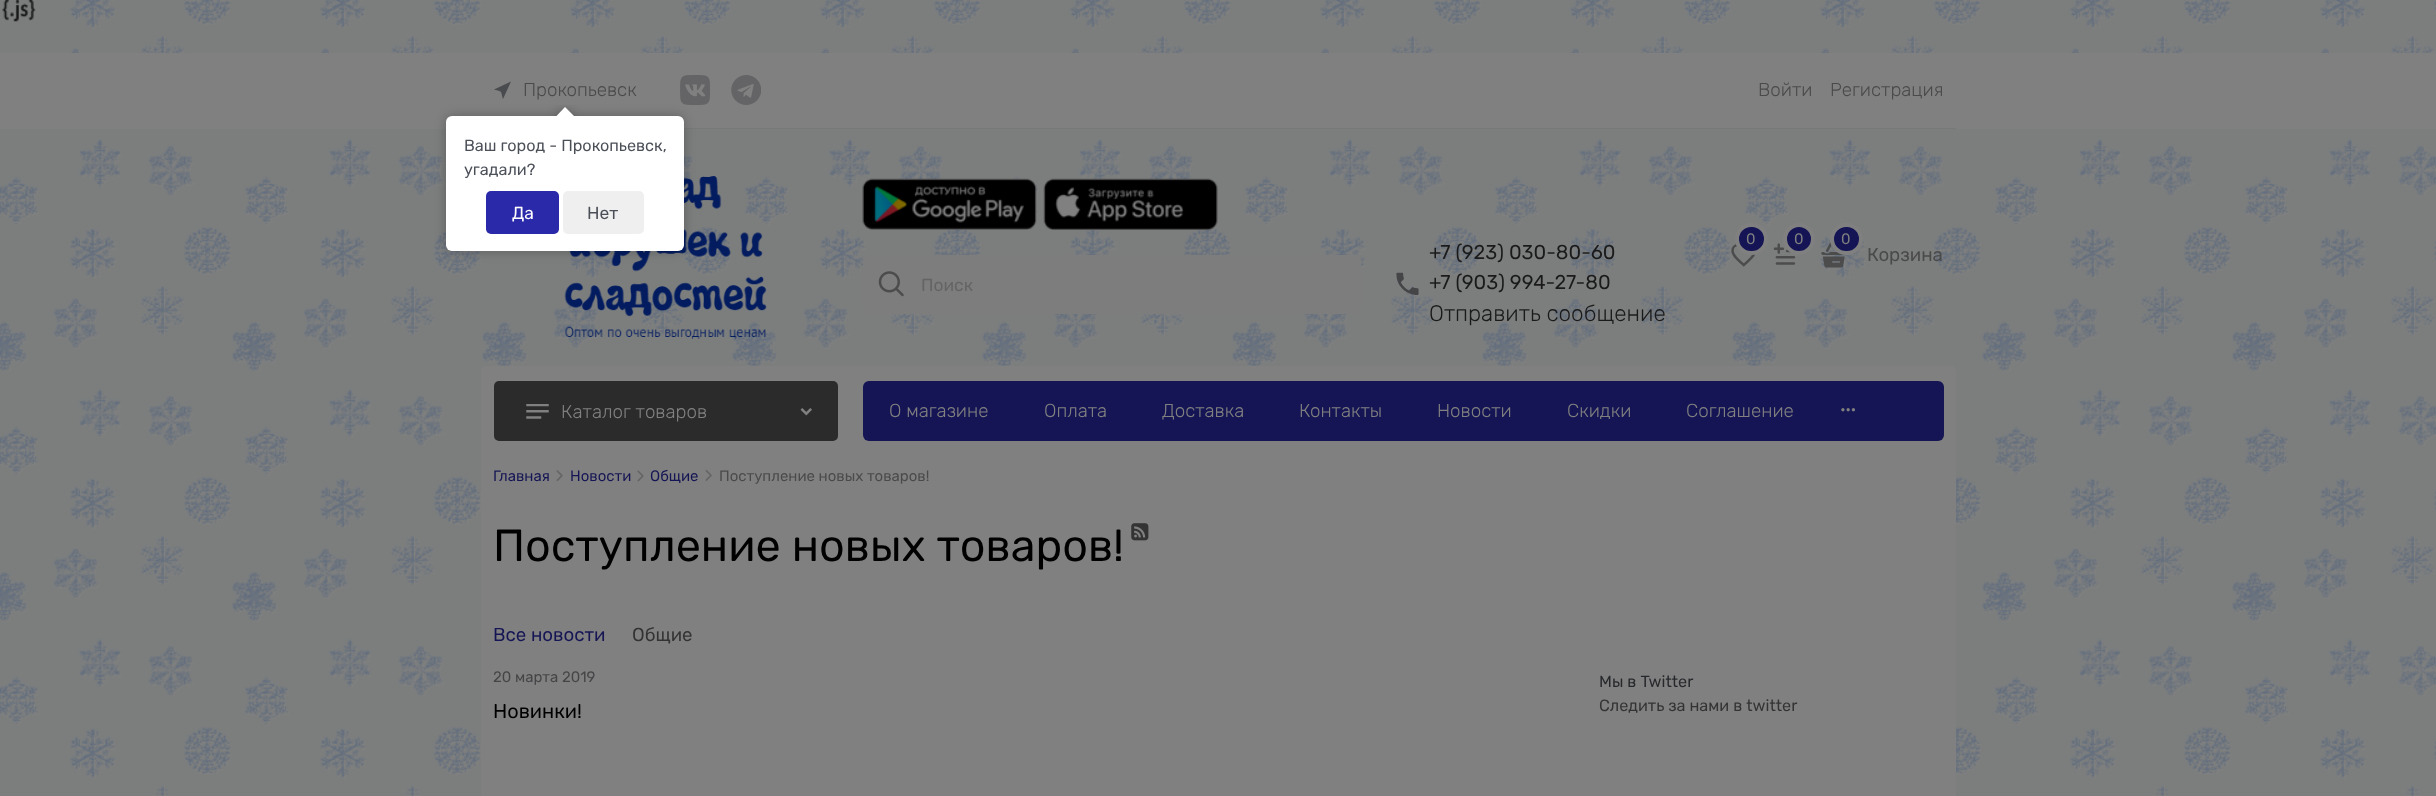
<svg xmlns="http://www.w3.org/2000/svg" width="2436" height="796">
<defs>
<clipPath id="clip1"><rect x="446" y="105" width="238" height="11"/></clipPath>
<clipPath id="clip2"><rect x="446" y="105" width="238" height="11"/></clipPath>
</defs>
<rect width="100%" height="100%" fill="#fff"/>
<image x="0" y="0" width="2436" height="796" href="media/1.png"/>
<image x="2" y="0" width="34" height="22" href="media/2.png"/>
<rect y="53" width="2436" height="76" fill="#808080"/>
<rect x="684" y="128" width="1272" height="1" fill="#78787a"/>
<path d="M494 89.5c8.5 2.5 6.5 .5 9 9.5l8-17.5z" fill="#4a4b4e"/>
<text x="523" y="96" style="font-family:Rubik;font-size:18.75px;font-weight:300;fill:#4b4a4a">Прокопьевск</text>
<image x="680" y="75" width="30" height="30" href="media/3.png"/>
<image x="731" y="75" width="30" height="30" href="media/4.png"/>
<text x="1758" y="96" style="font-family:Rubik;font-size:18.75px;font-weight:300;fill:#4b4a4a">Войти</text>
<text x="1830" y="96" style="font-family:Rubik;font-size:18.75px;font-weight:300;fill:#4b4a4a">Регистрация</text>
<image x="564" y="175" width="203" height="164" href="media/5.png"/>
<image x="862" y="178" width="175" height="52" href="media/6.png"/>
<image x="1043" y="178" width="175" height="52" href="media/7.png"/>
<rect x="863" y="255" width="498" height="59" rx="5" fill="#7d7d7d"/>
<image x="878" y="271" width="26" height="26" href="media/8.png"/>
<text x="921" y="291" style="font-family:Rubik;font-size:17.5px;fill:#646466">Поиск</text>
<image x="1396" y="272" width="23" height="23" href="media/9.png"/>
<text x="1429" y="259" style="font-family:Rubik;font-size:20px;fill:#1a1a1a">+7 (923) 030-80-60</text>
<text x="1429" y="289" style="font-family:Rubik;font-size:20px;fill:#1a1a1a">+7 (903) 994-27-80</text>
<text x="1429" y="321" style="font-family:Rubik;font-size:22.5px;font-weight:300;fill:#1a1a1a">Отправить сообщение</text>
<image x="1731" y="244" width="25" height="23" href="media/10.png"/>
<rect x="1737" y="225" width="29" height="28" rx="14" fill="#151555" stroke="#808080" stroke-width="4"/>
<text x="1746" y="244" style="font-family:Rubik;font-size:15px;fill:#808080">0</text>
<image x="1773" y="243" width="23" height="22" href="media/11.png"/>
<circle cx="1799" cy="239" r="14" fill="#151555" stroke="#808080" stroke-width="4"/>
<text x="1794" y="244" style="font-family:Rubik;font-size:15px;fill:#808080">0</text>
<image x="1821" y="242" width="25" height="26" href="media/12.png"/>
<rect x="1832" y="225" width="29" height="28" rx="14" fill="#151555" stroke="#808080" stroke-width="4"/>
<text x="1841" y="244" style="font-family:Rubik;font-size:15px;fill:#808080">0</text>
<text x="1867" y="261" style="font-family:Rubik;font-size:18.75px;fill:#4b4a4a">Корзина</text>
<path d="M487 366h1463c3.5 0 6 2.5 6 6v84h-1475v-84c0-3.5 2.5-6 6-6z" fill="#808080"/>
<rect x="494" y="381" width="344" height="60" rx="5" fill="#2a2b2a"/>
<image x="526" y="404" width="23" height="15" href="media/13.png"/>
<text x="561" y="418" style="font-family:Rubik;font-size:18.75px;font-weight:300;fill:#808080">Каталог товаров</text>
<image x="800" y="408" width="12" height="8" href="media/14.png"/>
<rect x="863" y="381" width="1081" height="60" rx="6" fill="#151555"/>
<text x="889" y="417" style="font-family:Rubik;font-size:18.75px;font-weight:300;fill:#808080">О магазине</text>
<text x="1044" y="417" style="font-family:Rubik;font-size:18.75px;font-weight:300;fill:#808080">Оплата</text>
<text x="1162" y="417" style="font-family:Rubik;font-size:18.75px;font-weight:300;fill:#808080">Доставка</text>
<text x="1299" y="417" style="font-family:Rubik;font-size:18.75px;font-weight:300;fill:#808080">Контакты</text>
<text x="1437" y="417" style="font-family:Rubik;font-size:18.75px;font-weight:300;fill:#808080">Новости</text>
<text x="1567" y="417" style="font-family:Rubik;font-size:18.75px;font-weight:300;fill:#808080">Скидки</text>
<text x="1686" y="417" style="font-family:Rubik;font-size:18.75px;font-weight:300;fill:#808080">Соглашение</text>
<image x="1841" y="408" width="14" height="4" href="media/15.png"/>
<rect x="481" y="456" width="1475" height="340" fill="#808080"/>
<text x="493" y="481" style="font-family:Rubik;font-size:15px;fill:#151555">Главная</text>
<image x="556" y="470" width="7" height="12" href="media/16.png"/>
<text x="570" y="481" style="font-family:Rubik;font-size:15px;fill:#151555">Новости</text>
<image x="637" y="470" width="7" height="12" href="media/17.png"/>
<text x="650" y="481" style="font-family:Rubik;font-size:15px;fill:#151555">Общие</text>
<image x="705" y="469" width="7" height="12" href="media/18.png"/>
<text x="719" y="481" style="font-family:Rubik;font-size:15px;fill:#4b4a4a">Поступление новых товаров!</text>
<text x="493" y="561" style="font-family:Rubik;font-size:45px;fill:#000">Поступление новых товаров!</text>
<image x="1131" y="523" width="18" height="18" href="media/19.png"/>
<text x="493" y="641" style="font-family:Rubik;font-size:18.75px;fill:#151555">Все новости</text>
<text x="632" y="641" style="font-family:Rubik;font-size:18.75px;fill:#333">Общие</text>
<text x="493" y="682" style="font-family:Rubik;font-size:15px;fill:#454548">20 марта 2019</text>
<text x="493" y="718" style="font-family:Rubik;font-size:20px;fill:#000">Новинки!</text>
<text x="1599" y="687" style="font-family:Rubik;font-size:16.25px;fill:#26282c">Мы в Twitter</text>
<text x="1599" y="711" style="font-family:Rubik;font-size:16.25px;fill:#333">Следить за нами в twitter</text>
<rect x="446" y="116" width="238" height="135" rx="6" fill="#00000040" filter="blur(5.5px)"/>
<rect x="446" y="116" width="238" height="135" rx="6" fill="#fff"/>
<g clip-path="url(#clip1)">
<rect x="559" y="110" width="12" height="13" fill="#00000040" filter="blur(5.5px)"/>
</g>
<g clip-path="url(#clip2)">
<path d="M565 107l9 9l-9 9l-8.5-9z" fill="#fff"/>
</g>
<text x="464" y="151" style="font-family:Rubik;font-size:16.25px;fill:#4b4f58">Ваш город - Прокопьевск,</text>
<text x="464" y="175" style="font-family:Rubik;font-size:16.25px;fill:#4b4f58">угадали?</text>
<rect x="486" y="191" width="73" height="43" rx="5" fill="#2929a9"/>
<text x="512" y="219" style="font-family:Rubik;font-size:17.5px;fill:#fff">Да</text>
<rect x="563" y="191" width="81" height="43" rx="5" fill="#efefef"/>
<text x="587" y="219" style="font-family:Rubik;font-size:17.5px;fill:#4b4f58">Нет</text>
</svg>
